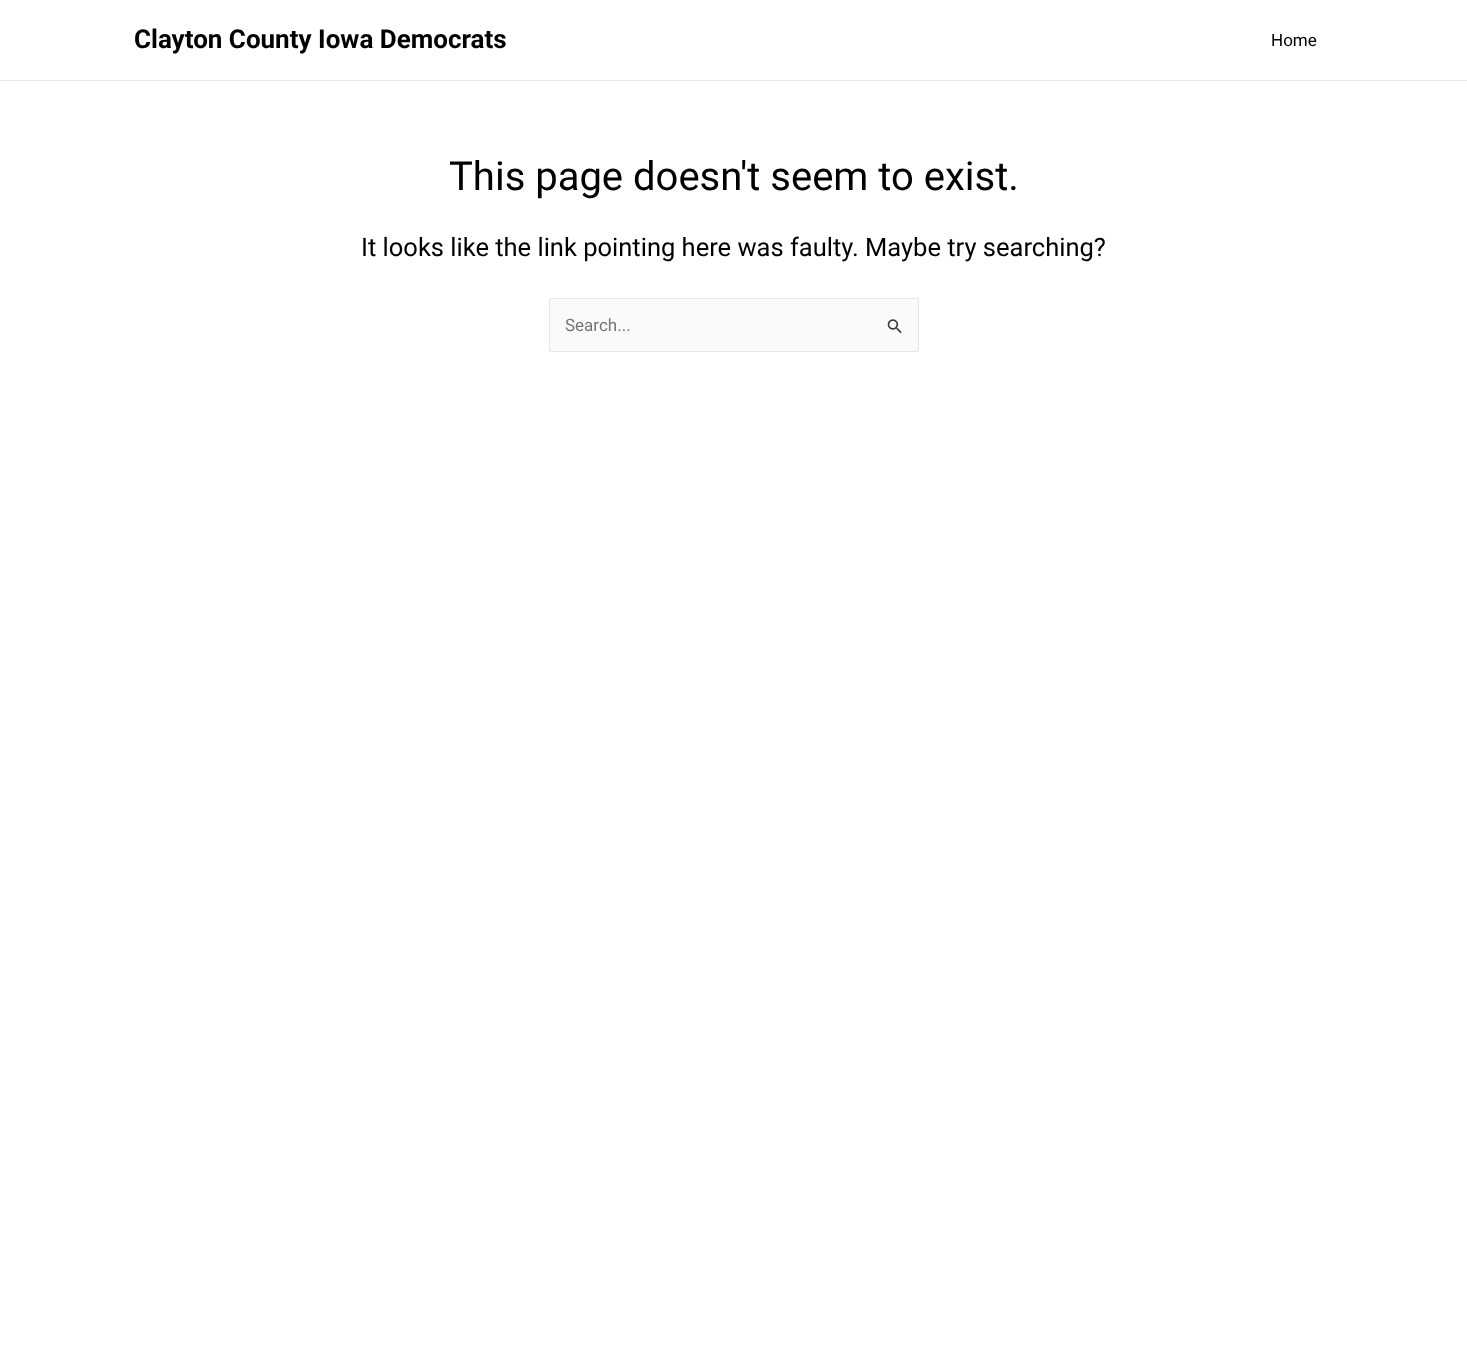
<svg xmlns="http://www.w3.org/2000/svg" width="1467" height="1358">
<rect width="100%" height="100%" fill="#fff"/>
<rect y="80" width="1467" height="1" fill="#e2e8f0"/>
<text x="134" y="48" style="font-family:Roboto;font-size:26px;font-weight:bold;fill:#000">Clayton County Iowa Democrats</text>
<text x="1271" y="46" style="font-family:Roboto;font-size:17px;fill:#000">Home</text>
<text x="449" y="190" style="font-family:Roboto;font-size:40px;fill:#000">This page doesn't seem to exist.</text>
<text x="361" y="256" style="font-family:Roboto;font-size:25.5px;fill:#000">It looks like the link pointing here was faulty. Maybe try searching?</text>
<rect x="549.5" y="298.5" width="369" height="53" rx="1.5" fill="#fafafa" stroke="#e2e8f0"/>
<text x="565" y="331" style="font-family:Roboto;font-size:17px;fill:#757575">Search...</text>
<image x="887" y="319" width="15" height="15" href="media/1.png"/>
</svg>
